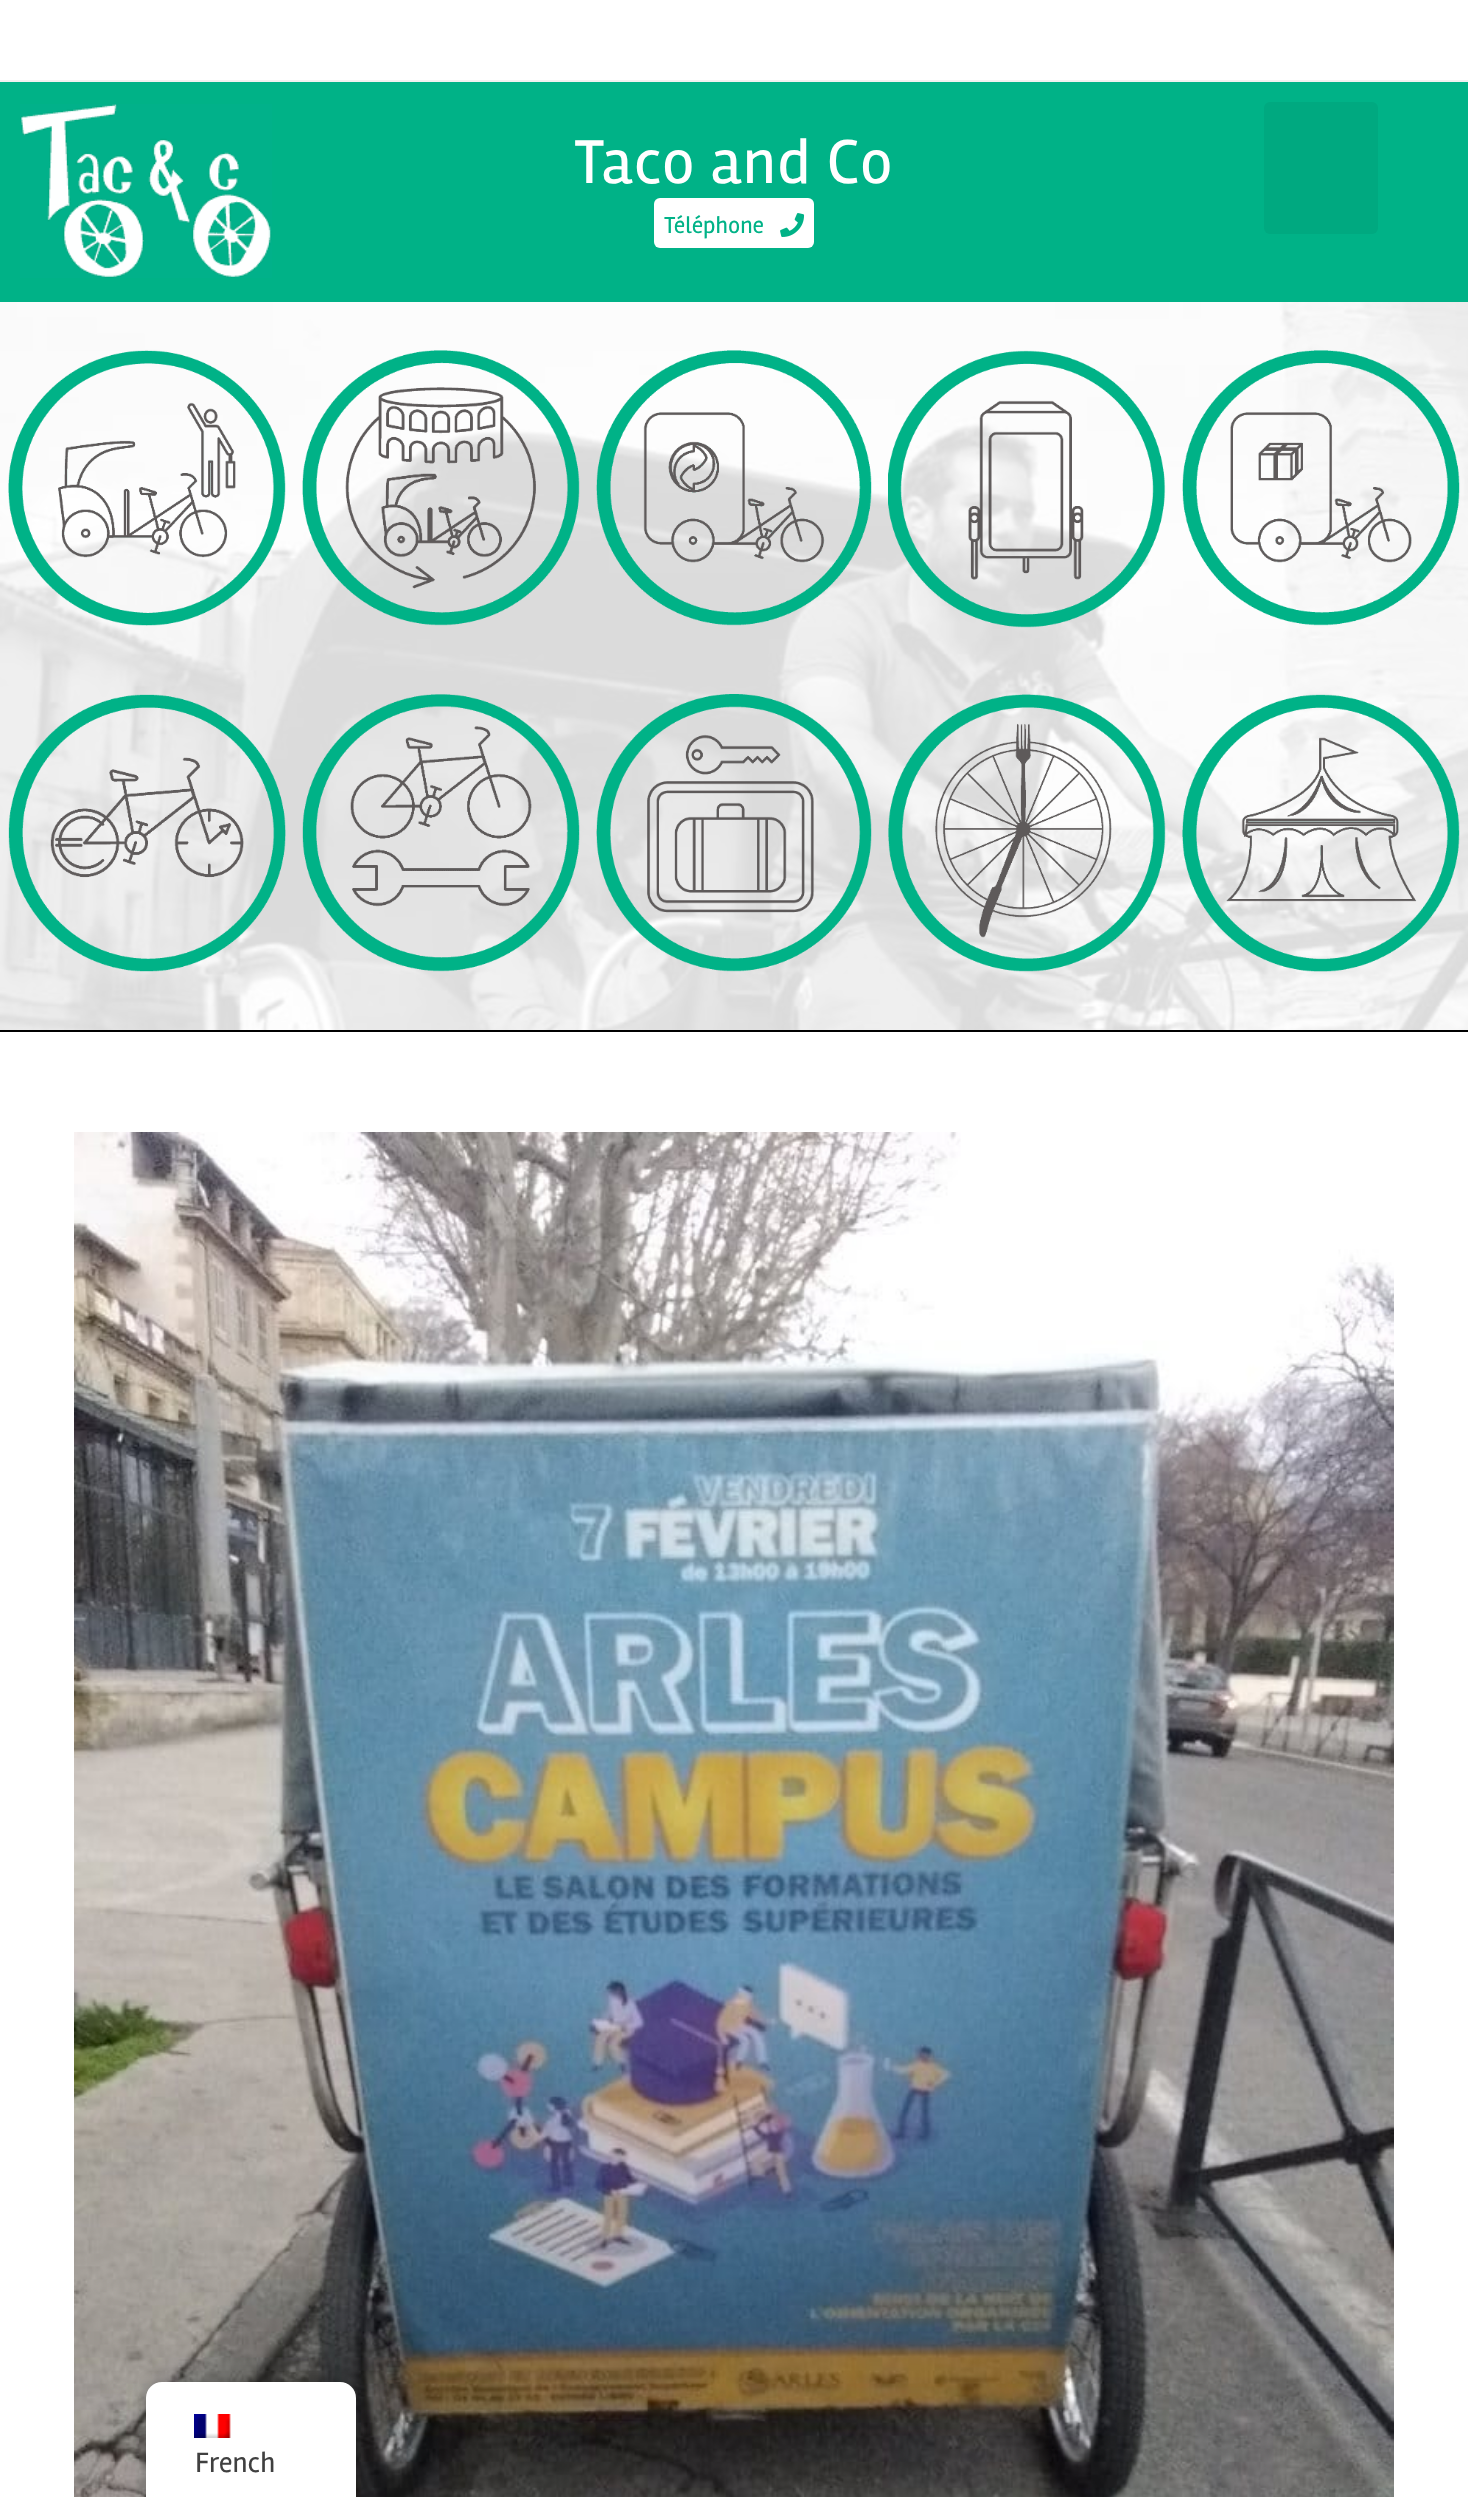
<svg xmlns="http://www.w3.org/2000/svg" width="1468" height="2497">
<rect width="100%" height="100%" fill="#fff"/>
<rect y="80" width="1468" height="2" fill="#f1f1f1"/>
<rect y="1030" width="1468" height="2" fill="#000"/>
<rect y="82" width="1468" height="220" fill="#00b287"/>
<image x="20" y="104" width="252" height="174" href="media/1.png"/>
<text x="574" y="183" style="font-family:Rambla;font-size:64px;letter-spacing:1.25px;fill:#fff">Taco and Co</text>
<rect x="654" y="198" width="160" height="50" rx="6" fill="#fff"/>
<text x="664" y="233" style="font-family:Rambla;font-size:24px;fill:#00b287">Téléphone</text>
<image x="780" y="213" width="25" height="24" href="media/2.png"/>
<rect x="1264" y="102" width="114" height="132" rx="6" fill="#00a980"/>
<image x="0" y="302" width="1468" height="728" href="media/3.png"/>
<image x="8" y="350" width="278" height="276" href="media/4.png"/>
<image x="302" y="350" width="278" height="276" href="media/5.png"/>
<image x="596" y="350" width="276" height="276" href="media/6.png"/>
<image x="888" y="350" width="278" height="278" href="media/7.png"/>
<image x="1182" y="350" width="278" height="276" href="media/8.png"/>
<image x="8" y="694" width="278" height="278" href="media/9.png"/>
<image x="302" y="694" width="278" height="278" href="media/10.png"/>
<image x="596" y="694" width="276" height="278" href="media/11.png"/>
<image x="888" y="694" width="278" height="278" href="media/12.png"/>
<image x="1182" y="694" width="278" height="278" href="media/13.png"/>
<image x="74" y="1132" width="1320" height="1365" href="media/14.png"/>
<rect x="146" y="2382" width="210" height="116" rx="16" fill="#00000040" filter="blur(8px)"/>
<path d="M162 2382h178c9 0 16 7 16 16v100h-210v-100c0-9 7-16 16-16z" fill="#fff"/>
<image x="194" y="2414" width="37" height="24" href="media/15.png"/>
<text x="195" y="2472" style="font-family:Rambla;font-size:29px;fill:#404040">French</text>
</svg>
